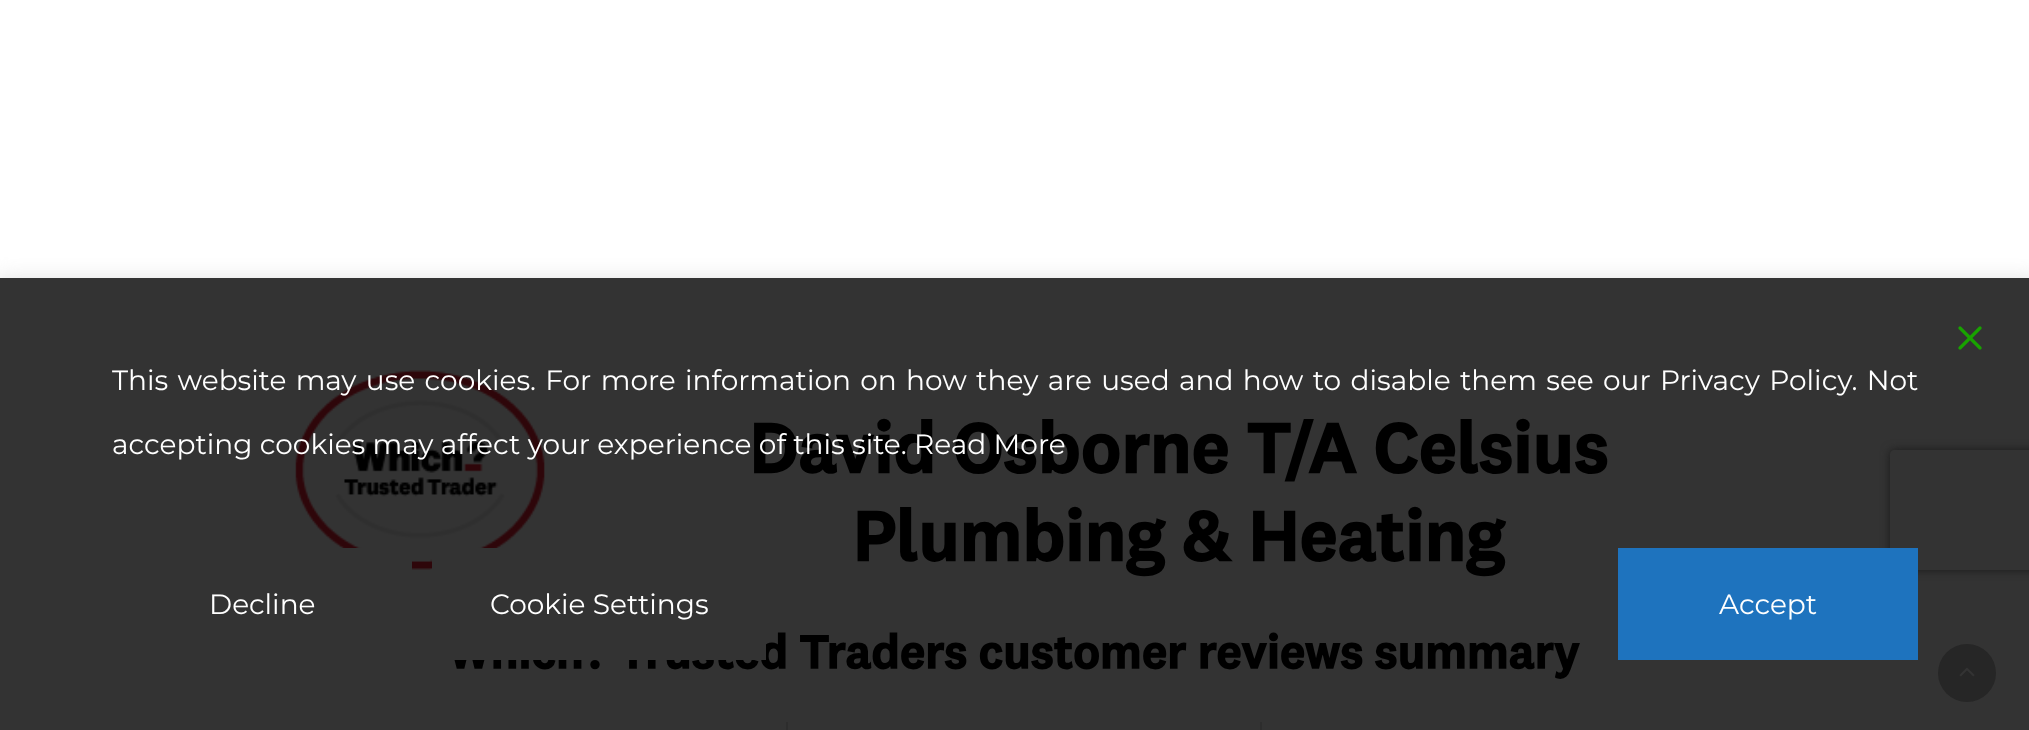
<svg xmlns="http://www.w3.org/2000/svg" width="2029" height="730">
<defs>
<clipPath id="clip1"><rect x="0" y="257" width="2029" height="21"/></clipPath>
<clipPath id="clip2"><path d="M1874 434h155v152h-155zm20 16h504c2 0 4 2 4 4v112c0 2-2 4-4 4h-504c-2 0-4-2-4-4v-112c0-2 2-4 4-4z" clip-rule="evenodd"/></clipPath>
</defs>
<rect width="100%" height="100%" fill="#fff"/>
<rect y="278" width="2029" height="452" fill="#333"/>
<image x="295" y="370" width="1313" height="360" href="media/1.png"/>
<circle cx="1967" cy="673" r="29" fill="#262626"/>
<image x="1959" y="667" width="16" height="10" href="media/2.png"/>
<g clip-path="url(#clip1)">
<rect x="-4" y="280" width="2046" height="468" fill="#ddd" filter="blur(11px)"/>
</g>
<image x="1958" y="326" width="24" height="24" href="media/3.png"/>
<text x="112" y="390" word-spacing="2" style="font-family:Montserrat;font-size:28px;fill:#fff">This website may use cookies. For more information on how they are used and how to disable them see our Privacy Policy. Not</text>
<text x="112" y="454" style="font-family:Montserrat;font-size:28px;fill:#fff">accepting cookies may affect your experience of this site. Read More</text>
<rect x="341" y="548" width="71" height="22" fill="#333"/>
<text x="209" y="614" style="font-family:Montserrat;font-size:28px;fill:#fff">Decline</text>
<rect x="432" y="548" width="334" height="112" fill="#333"/>
<text x="490" y="614" style="font-family:Montserrat;font-size:28px;fill:#fff">Cookie Settings</text>
<g clip-path="url(#clip2)">
<rect x="1890" y="450" width="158" height="120" rx="4" fill="#1a1a1a" filter="blur(5px)"/>
</g>
<rect x="1618" y="548" width="300" height="112" fill="#1e73be"/>
<text x="1719" y="614" style="font-family:Montserrat;font-size:28px;fill:#fff">Accept</text>
</svg>
